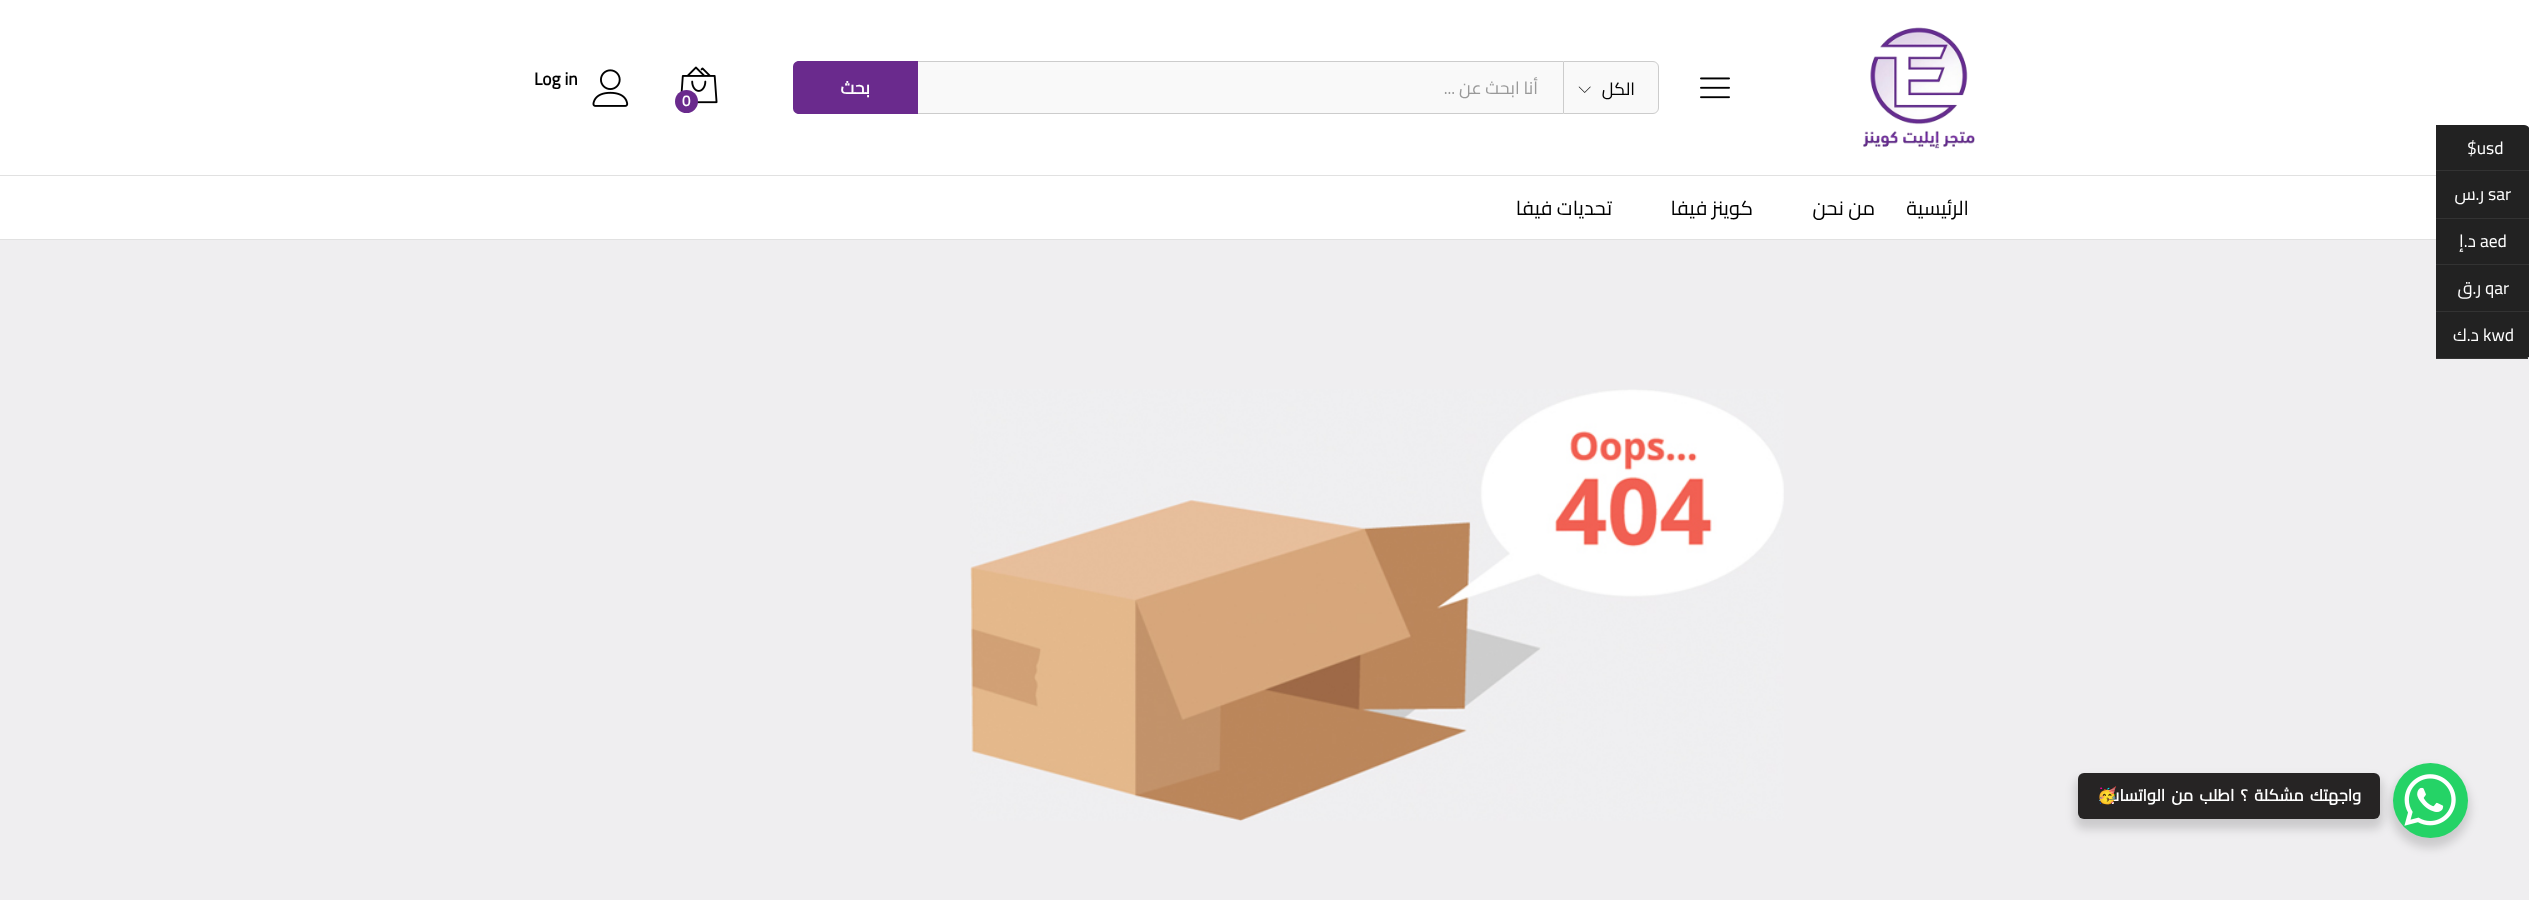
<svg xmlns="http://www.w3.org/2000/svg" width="2529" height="900">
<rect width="100%" height="100%" fill="#fff"/>
<path d="M2436 125h88c3.5 0 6 2.5 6 6v40h-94z" fill="#222"/>
<rect x="2436" y="170" width="93" height="1" fill="#333"/>
<text x="2467" y="154" style="font-family:Cairo;font-size:17.5px;fill:#fff">$usd</text>
<rect x="2436" y="171" width="93" height="47" fill="#222"/>
<rect x="2436" y="218" width="93" height="1" fill="#333"/>
<text x="2488" y="200" style="font-family:Cairo;font-size:17.5px;fill:#fff">sar</text>
<text x="2484" y="200" style="font-family:Cairo;font-size:17.5px;direction:rtl;fill:#fff">ر.س</text>
<rect y="240" width="2529" height="660" fill="#efeef0"/>
<rect x="2436" y="219" width="93" height="45" fill="#222"/>
<rect x="2436" y="264" width="93" height="1" fill="#333"/>
<text x="2480" y="247" style="font-family:Cairo;font-size:17.5px;fill:#fff">aed</text>
<text x="2476" y="247" style="font-family:Cairo;font-size:17.5px;direction:rtl;fill:#fff">د.إ</text>
<rect x="2436" y="265" width="93" height="48" fill="#222"/>
<rect x="2436" y="311" width="93" height="1" fill="#333"/>
<text x="2485" y="294" style="font-family:Cairo;font-size:17.5px;fill:#fff">qar</text>
<text x="2481" y="294" style="font-family:Cairo;font-size:17.5px;direction:rtl;fill:#fff">ر.ق</text>
<path d="M2436 313h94v40c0 3.5-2.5 6-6 6h-88z" fill="#222"/>
<rect x="2436" y="358" width="92" height="1" fill="#333"/>
<text x="2483" y="341" style="font-family:Cairo;font-size:17.5px;fill:#fff">kwd</text>
<text x="2479" y="341" style="font-family:Cairo;font-size:17.5px;direction:rtl;fill:#fff">د.ك</text>
<image x="1863" y="27" width="112" height="122" href="media/1.png"/>
<image x="1700" y="77" width="30" height="22" href="media/2.png"/>
<path d="M1563.5 61.5h89.5c3 0 5.5 2.5 5.5 5.5v41c0 3-2.5 5.5-5.5 5.5h-89.5z" fill="#f9f9f9" stroke="#ccc"/>
<text x="1635" y="95" style="font-family:Cairo;font-size:17.5px;direction:rtl;fill:#000">الكل</text>
<image x="1578" y="86" width="13" height="7" href="media/3.png"/>
<rect x="918" y="62" width="645" height="51" fill="#f9f9f9"/>
<rect x="918" y="61" width="645" height="1" fill="#ccc"/>
<rect x="918" y="113" width="645" height="1" fill="#ccc"/>
<text x="1538" y="94" style="font-family:Cairo;font-size:17.5px;direction:rtl;fill:#999">أنا ابحث عن ...</text>
<path d="M799 61h119v53h-119c-3.5 0-6-2.5-6-6v-41c0-3.5 2.5-6 6-6z" fill="#6a2a8d"/>
<text x="870" y="94" style="font-family:Cairo;font-size:17.5px;font-weight:bold;direction:rtl;fill:#fff">بحث</text>
<image x="592" y="69" width="37" height="38" href="media/4.png"/>
<text x="534" y="85" style="font-family:Cairo;font-size:17.5px;font-weight:bold;fill:#000">Log in</text>
<image x="680" y="66" width="38" height="38" href="media/5.png"/>
<circle cx="686.5" cy="101.5" r="11.5" fill="#6a2a8d"/>
<text x="682" y="106" style="font-family:Cairo;font-size:15px;font-weight:bold;fill:#fff">0</text>
<rect y="175" width="2436" height="1" fill="#e1e1e1"/>
<rect y="239" width="2436" height="1" fill="#e1e1e1"/>
<text x="1969" y="215" style="font-family:Cairo;font-size:20px;direction:rtl;fill:#000">الرئيسية</text>
<text x="1875" y="215" style="font-family:Cairo;font-size:20px;direction:rtl;fill:#000">من نحن</text>
<text x="1753" y="215" style="font-family:Cairo;font-size:20px;direction:rtl;fill:#000">كوينز فيفا</text>
<text x="1612" y="215" style="font-family:Cairo;font-size:20px;direction:rtl;fill:#000">تحديات فيفا</text>
<image x="970" y="389" width="814" height="432" href="media/6.png"/>
<rect x="2390" y="768" width="80" height="80" rx="40" fill="#00000026" filter="blur(5px)"/>
<circle cx="2430.5" cy="800.5" r="37.5" fill="#25d366"/>
<image x="2404" y="774" width="52" height="52" href="media/7.png"/>
<rect x="2075" y="778" width="308" height="51" rx="9" fill="#00000026" filter="blur(5px)"/>
<rect x="2078" y="773" width="302" height="46" rx="6" fill="#262424"/>
<text x="2361" y="801" word-spacing="2.75" style="font-family:Cairo;font-size:16.25px;font-weight:bold;letter-spacing:-0.5px;direction:rtl;fill:#fff">واجهتك مشكلة ؟ اطلب من الواتساب</text>
<text x="2117" y="801" style="font-family:Noto Color Emoji;font-size:16.25px;font-weight:bold;letter-spacing:-0.5px;direction:rtl;fill:#fff">🥳</text>
</svg>
